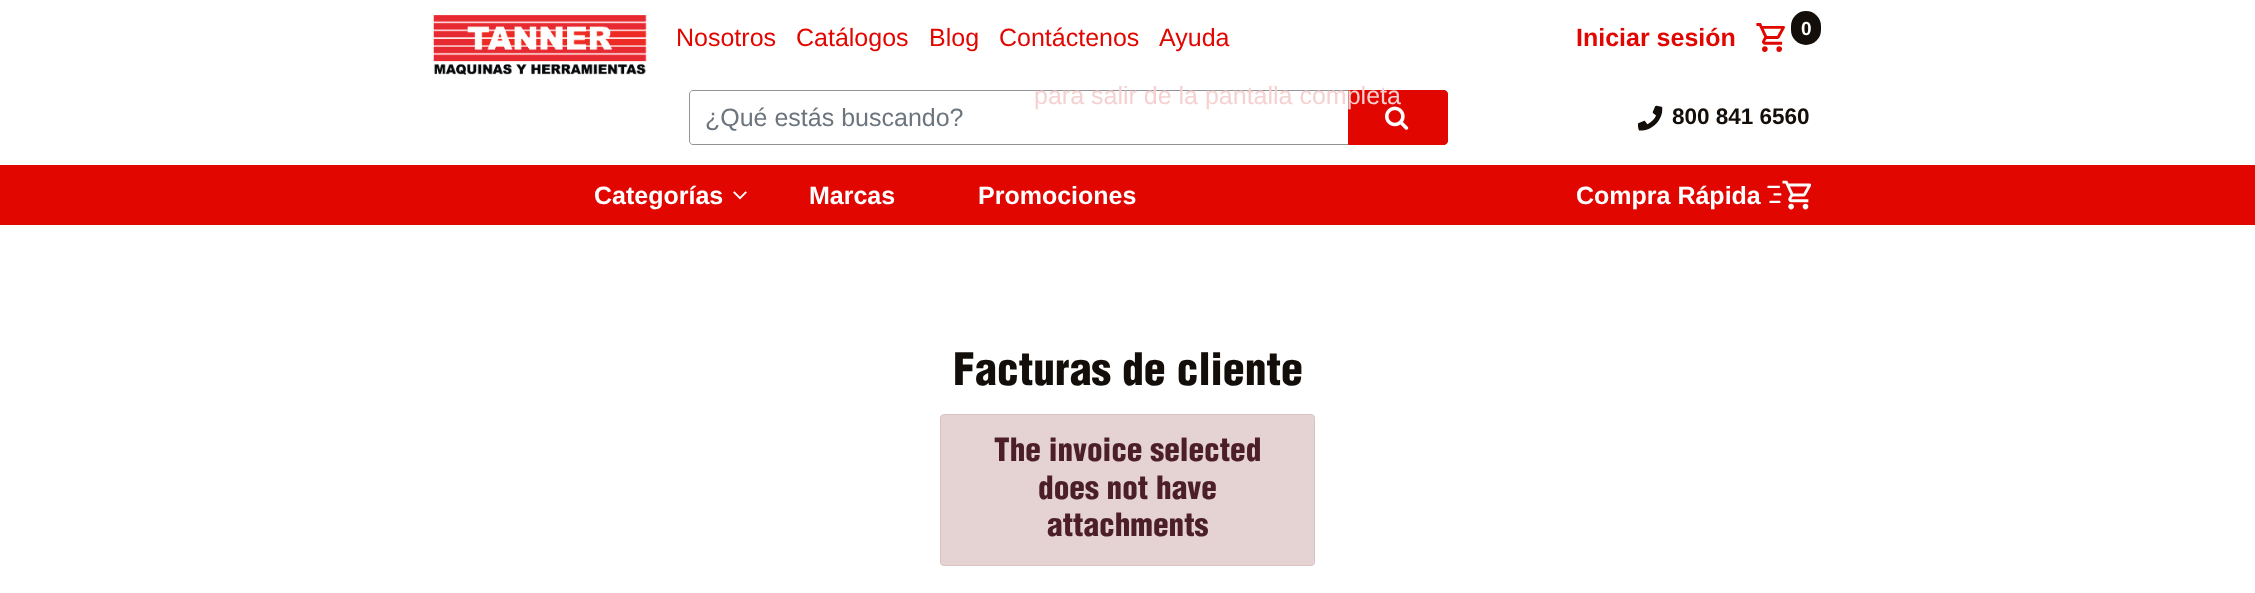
<svg xmlns="http://www.w3.org/2000/svg" width="2255" height="593">
<rect width="100%" height="100%" fill="#fff"/>
<image x="433" y="15" width="214" height="60" href="media/1.png"/>
<text x="676" y="46" style="font-family:Liberation Sans;font-size:25px;fill:#e10600">Nosotros</text>
<text x="796" y="46" style="font-family:Liberation Sans;font-size:25px;fill:#e10600">Catálogos</text>
<text x="929" y="46" style="font-family:Liberation Sans;font-size:25px;fill:#e10600">Blog</text>
<text x="999" y="46" style="font-family:Liberation Sans;font-size:25px;fill:#e10600">Contáctenos</text>
<text x="1159" y="46" style="font-family:Liberation Sans;font-size:25px;fill:#e10600">Ayuda</text>
<text x="1576" y="46" style="font-family:Liberation Sans;font-size:25px;font-weight:bold;fill:#e10600">Iniciar sesión</text>
<image x="1756" y="23" width="29" height="29" href="media/2.png"/>
<rect x="1791" y="11" width="30" height="34" rx="15" fill="#130e09"/>
<text x="1801" y="35" style="font-family:Liberation Sans;font-size:19px;font-weight:bold;fill:#fff">0</text>
<path d="M693 90.5h655.5v54h-655.5c-2 0-3.5-1.5-3.5-3.5v-47c0-2 1.5-3.5 3.5-3.5z" fill="none" stroke="#909496"/>
<text x="705" y="126" style="font-family:Liberation Sans;font-size:25px;fill:#6c757d">¿Qué estás buscando?</text>
<path d="M1348.5 90.5h95.5c2 0 3.5 1.5 3.5 3.5v47c0 2-1.5 3.5-3.5 3.5h-95.5z" fill="#e10600" stroke="#e10600"/>
<image x="1385" y="106" width="24" height="24" href="media/3.png"/>
<image x="1638" y="105" width="25" height="26" href="media/4.png"/>
<text x="1672" y="124" style="font-family:Arimo;font-size:22.5px;font-weight:bold;fill:#130e09">800 841 6560</text>
<rect y="165" width="2255" height="60" fill="#e10600"/>
<text x="594" y="204" style="font-family:Liberation Sans;font-size:25px;font-weight:bold;fill:#fff">Categorías</text>
<image x="733" y="191" width="14" height="9" href="media/5.png"/>
<text x="809" y="204" style="font-family:Liberation Sans;font-size:25px;font-weight:bold;fill:#fff">Marcas</text>
<text x="978" y="204" style="font-family:Liberation Sans;font-size:25px;font-weight:bold;fill:#fff">Promociones</text>
<text x="1576" y="204" style="font-family:Arimo;font-size:25px;font-weight:bold;fill:#fff">Compra Rápida</text>
<image x="1767" y="180" width="44" height="30" href="media/6.png"/>
<text x="953" y="385" style="font-family:Helvetica;font-size:43.75px;font-weight:900;fill:#130e09">Facturas de cliente</text>
<rect x="940.5" y="414.5" width="374" height="151" rx="3.5" fill="#e5d3d4" stroke="#dac2c3"/>
<text x="994" y="461" style="font-family:Helvetica;font-size:31.25px;font-weight:900;fill:#4c1f26">The invoice selected</text>
<text x="1038" y="499" style="font-family:Helvetica;font-size:31.25px;font-weight:900;fill:#4c1f26">does not have</text>
<text x="1047" y="536" style="font-family:Helvetica;font-size:31.25px;font-weight:900;fill:#4c1f26">attachments</text>
<text x="1034" y="104" style="font-family:Liberation Sans;font-size:25px;fill:#f5d2d1">para salir de la pantalla completa</text>
</svg>
